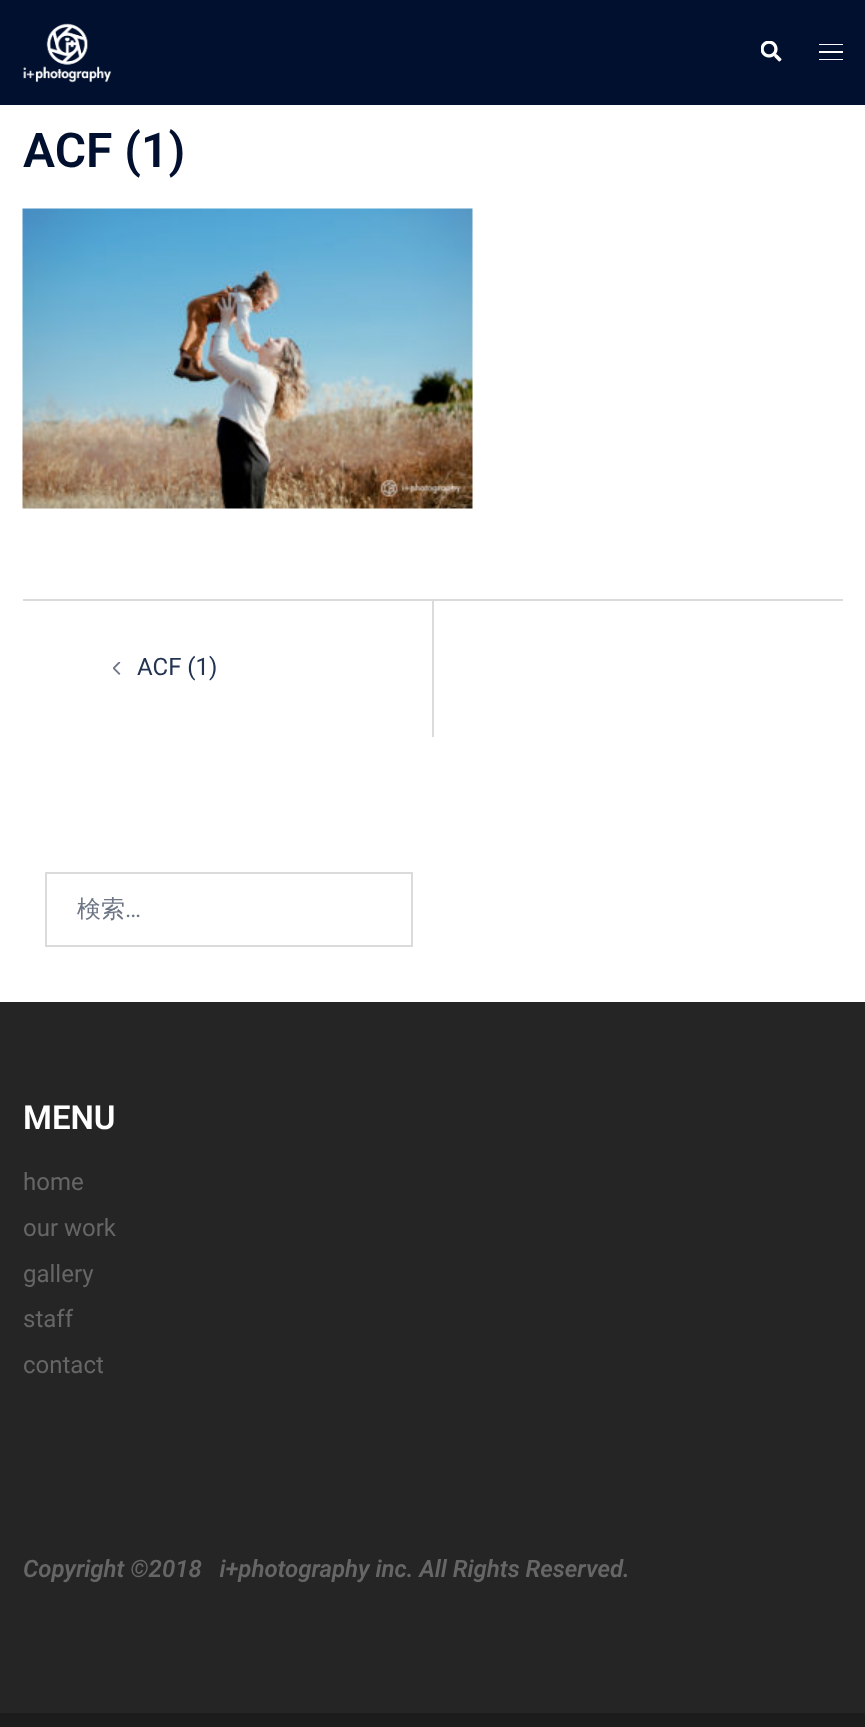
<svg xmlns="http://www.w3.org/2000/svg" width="865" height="1727">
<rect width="100%" height="100%" fill="#fff"/>
<rect width="865" height="105" fill="#00102e"/>
<image x="23" y="23" width="89" height="60" href="media/1.png"/>
<image x="761" y="41" width="21" height="21" href="media/2.png"/>
<rect x="819" y="44" width="24" height="1" fill="#fff"/>
<rect x="819" y="51" width="24" height="2" fill="#fff"/>
<rect x="819" y="59" width="24" height="1" fill="#fff"/>
<text x="23" y="167" style="font-family:Roboto;font-size:48px;font-weight:600;fill:#00102e">ACF (1)</text>
<image x="22" y="208" width="451" height="301" href="media/3.png"/>
<rect x="23" y="599" width="820" height="2" fill="#dbdbdb"/>
<rect x="432" y="600" width="2" height="137" fill="#dbdbdb"/>
<image x="113" y="662" width="8" height="13" href="media/4.png"/>
<text x="137" y="675" style="font-family:Roboto;font-size:24px;fill:#233452">ACF (1)</text>
<rect x="46" y="873" width="366" height="73" fill="none" stroke="#dbdbdb" stroke-width="2"/>
<text x="77" y="917" style="font-family:WenQuanYi Zen Hei;font-size:24px;font-weight:500;fill:#6d7685">検索</text>
<text x="125" y="917" style="font-family:Roboto;font-size:24px;fill:#6d7685">…</text>
<rect y="1002" width="865" height="711" fill="#252525"/>
<text x="23" y="1129" style="font-family:Roboto;font-size:33px;font-weight:600;fill:#fff">MENU</text>
<text x="23" y="1190" style="font-family:Roboto;font-size:24px;fill:#666">home</text>
<text x="23" y="1236" style="font-family:Roboto;font-size:24px;fill:#666">our work</text>
<text x="23" y="1282" style="font-family:Roboto;font-size:24px;fill:#666">gallery</text>
<text x="23" y="1327" style="font-family:Roboto;font-size:24px;fill:#666">staff</text>
<text x="23" y="1373" style="font-family:Roboto;font-size:24px;fill:#666">contact</text>
<text x="23" y="1577" style="font-family:Roboto;font-size:24px;font-weight:600;font-style:italic;fill:#666" xml:space="preserve">Copyright ©2018   i+photography inc. All Rights Reserved.</text>
<rect y="1713" width="865" height="14" fill="#1c1c1c"/>
</svg>
